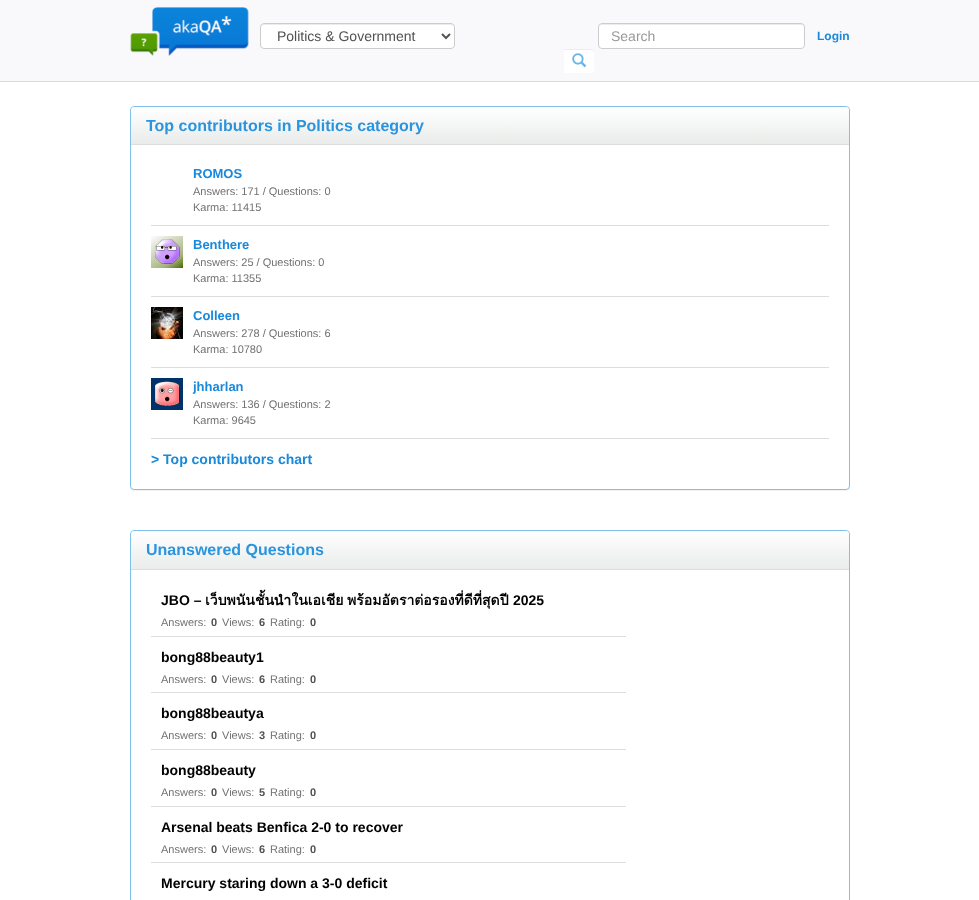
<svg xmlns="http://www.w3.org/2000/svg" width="979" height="900">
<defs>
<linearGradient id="g1" gradientUnits="userSpaceOnUse" x1="490" y1="107" x2="490" y2="144"><stop offset="0" stop-color="#fff"/><stop offset="1" stop-color="#e9ecea"/></linearGradient>
<linearGradient id="g2" gradientUnits="userSpaceOnUse" x1="490" y1="531" x2="490" y2="569"><stop offset="0" stop-color="#fff"/><stop offset="1" stop-color="#e9ecea"/></linearGradient>
</defs>
<rect width="100%" height="100%" fill="#fff"/>
<rect width="979" height="81" fill="#f9f8fb"/>
<rect y="81" width="979" height="1" fill="#d8dcdf"/>
<image x="130" y="7" width="119" height="49" href="media/1.png"/>
<rect x="260" y="23" width="195" height="26" rx="4" fill="#fff"/>
<path d="M264 25h187c2 0 3 1 3 3c0-2-1-4-3-4h-187c-2 0-3 2-3 4c0-2 1-3 3-3z" fill="#ececec"/>
<rect x="260.5" y="23.5" width="194" height="25" rx="3.5" fill="none" stroke="#ccc"/>
<path d="M442 34l4 4l4-4" fill="none" stroke="#555" stroke-width="2"/>
<text x="277" y="41" style="font-family:Liberation Sans;font-size:14px;fill:#515151">Politics &amp; Government</text>
<rect x="598" y="23" width="207" height="26" rx="4" fill="#fff"/>
<path d="M602 25h199c2 0 3 1 3 3c0-2-1-4-3-4h-199c-2 0-3 2-3 4c0-2 1-3 3-3z" fill="#ececec"/>
<rect x="598.5" y="23.5" width="206" height="25" rx="3.5" fill="none" stroke="#c9cdd0"/>
<text x="611" y="41" style="font-family:Liberation Sans;font-size:14px;fill:#999">Search</text>
<path d="M564 49h26c2 0 4 2 4 4v16c0 2-2 4-4 4h-26z" fill="#fff"/>
<path d="M564 50h22c5.5 0 7.5 .5 8 3c0-2-2-4-4-4h-26z" fill="#ececec"/>
<image x="572" y="53" width="15" height="15" href="media/2.png"/>
<text x="817" y="40" style="font-family:Liberation Sans;font-size:12px;font-weight:bold;fill:#1889db">Login</text>
<rect x="130" y="107" width="720" height="384" rx="4" fill="#0000000d" filter="blur(0.5px)"/>
<rect x="130.5" y="106.5" width="719" height="383" rx="3.5" fill="#fff" stroke="#82c0ec"/>
<path d="M134 107h712c1.5 0 3 1.5 3 3v34h-718v-34c0-1.5 1.5-3 3-3z" fill="url(#g1)"/>
<rect x="131" y="144" width="718" height="1" fill="#ddd"/>
<text x="146" y="131" style="font-family:Liberation Sans;font-size:16px;font-weight:bold;fill:#2a94de">Top contributors in Politics category</text>
<rect x="151" y="225" width="678" height="1" fill="#ddd"/>
<text x="193" y="178" style="font-family:Liberation Sans;font-size:13px;font-weight:bold;fill:#1889db">ROMOS</text>
<text x="193" y="195" style="font-family:Liberation Sans;font-size:11px;fill:#717171">Answers: 171 / Questions: 0</text>
<text x="193" y="211" style="font-family:Liberation Sans;font-size:11px;fill:#717171">Karma: 11415</text>
<rect x="151" y="296" width="678" height="1" fill="#ddd"/>
<image x="151" y="236" width="32" height="32" href="media/3.png"/>
<text x="193" y="249" style="font-family:Liberation Sans;font-size:13px;font-weight:bold;fill:#1889db">Benthere</text>
<text x="193" y="266" style="font-family:Liberation Sans;font-size:11px;fill:#717171">Answers: 25 / Questions: 0</text>
<text x="193" y="282" style="font-family:Liberation Sans;font-size:11px;fill:#717171">Karma: 11355</text>
<rect x="151" y="367" width="678" height="1" fill="#ddd"/>
<image x="151" y="307" width="32" height="32" href="media/4.png"/>
<text x="193" y="320" style="font-family:Liberation Sans;font-size:13px;font-weight:bold;fill:#1889db">Colleen</text>
<text x="193" y="337" style="font-family:Liberation Sans;font-size:11px;fill:#717171">Answers: 278 / Questions: 6</text>
<text x="193" y="353" style="font-family:Liberation Sans;font-size:11px;fill:#717171">Karma: 10780</text>
<rect x="151" y="438" width="678" height="1" fill="#ddd"/>
<image x="151" y="378" width="32" height="32" href="media/5.png"/>
<text x="193" y="391" style="font-family:Liberation Sans;font-size:13px;font-weight:bold;fill:#1889db">jhharlan</text>
<text x="193" y="408" style="font-family:Liberation Sans;font-size:11px;fill:#717171">Answers: 136 / Questions: 2</text>
<text x="193" y="424" style="font-family:Liberation Sans;font-size:11px;fill:#717171">Karma: 9645</text>
<text x="151" y="464" style="font-family:Liberation Sans;font-size:14px;font-weight:bold;fill:#1889db">&gt; Top contributors chart</text>
<rect x="130.5" y="530.5" width="719" height="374" rx="3.5" fill="none" stroke="#82c0ec"/>
<path d="M134 531h712c1.5 0 3 1.5 3 3v35h-718v-35c0-1.5 1.5-3 3-3z" fill="url(#g2)"/>
<rect x="131" y="569" width="718" height="1" fill="#ddd"/>
<text x="146" y="555" style="font-family:Liberation Sans;font-size:16px;font-weight:bold;fill:#2a94de">Unanswered Questions</text>
<rect x="151" y="636" width="475" height="1" fill="#dbdfe0"/>
<text x="161" y="605" style="font-family:Liberation Sans;font-size:14px;font-weight:bold;fill:#000">JBO –</text>
<text x="205" y="605" style="font-family:Loma;font-size:14px;font-weight:bold;fill:#000">เว็บพนันชั้นนำในเอเชีย</text>
<text x="347" y="605" style="font-family:Loma;font-size:14px;font-weight:bold;fill:#000">พร้อมอัตราต่อรองที่ดีที่สุดปี</text>
<text x="513" y="605" style="font-family:Liberation Sans;font-size:14px;font-weight:bold;fill:#000">2025</text>
<text x="161" y="626" style="font-family:Liberation Sans;font-size:11px;fill:#717171">Answers:</text>
<text x="211" y="626" style="font-family:Liberation Sans;font-size:11px;font-weight:bold;fill:#515151">0</text>
<text x="222" y="626" style="font-family:Liberation Sans;font-size:11px;fill:#717171">Views:</text>
<text x="259" y="626" style="font-family:Liberation Sans;font-size:11px;font-weight:bold;fill:#515151">6</text>
<text x="270" y="626" style="font-family:Liberation Sans;font-size:11px;fill:#717171">Rating:</text>
<text x="310" y="626" style="font-family:Liberation Sans;font-size:11px;font-weight:bold;fill:#515151">0</text>
<rect x="151" y="692" width="475" height="1" fill="#dbdfe0"/>
<text x="161" y="662" style="font-family:Liberation Sans;font-size:14px;font-weight:bold;fill:#000">bong88beauty1</text>
<text x="161" y="683" style="font-family:Liberation Sans;font-size:11px;fill:#717171">Answers:</text>
<text x="211" y="683" style="font-family:Liberation Sans;font-size:11px;font-weight:bold;fill:#515151">0</text>
<text x="222" y="683" style="font-family:Liberation Sans;font-size:11px;fill:#717171">Views:</text>
<text x="259" y="683" style="font-family:Liberation Sans;font-size:11px;font-weight:bold;fill:#515151">6</text>
<text x="270" y="683" style="font-family:Liberation Sans;font-size:11px;fill:#717171">Rating:</text>
<text x="310" y="683" style="font-family:Liberation Sans;font-size:11px;font-weight:bold;fill:#515151">0</text>
<rect x="151" y="749" width="475" height="1" fill="#dbdfe0"/>
<text x="161" y="718" style="font-family:Liberation Sans;font-size:14px;font-weight:bold;fill:#000">bong88beautya</text>
<text x="161" y="739" style="font-family:Liberation Sans;font-size:11px;fill:#717171">Answers:</text>
<text x="211" y="739" style="font-family:Liberation Sans;font-size:11px;font-weight:bold;fill:#515151">0</text>
<text x="222" y="739" style="font-family:Liberation Sans;font-size:11px;fill:#717171">Views:</text>
<text x="259" y="739" style="font-family:Liberation Sans;font-size:11px;font-weight:bold;fill:#515151">3</text>
<text x="270" y="739" style="font-family:Liberation Sans;font-size:11px;fill:#717171">Rating:</text>
<text x="310" y="739" style="font-family:Liberation Sans;font-size:11px;font-weight:bold;fill:#515151">0</text>
<rect x="151" y="806" width="475" height="1" fill="#dbdfe0"/>
<text x="161" y="775" style="font-family:Liberation Sans;font-size:14px;font-weight:bold;fill:#000">bong88beauty</text>
<text x="161" y="796" style="font-family:Liberation Sans;font-size:11px;fill:#717171">Answers:</text>
<text x="211" y="796" style="font-family:Liberation Sans;font-size:11px;font-weight:bold;fill:#515151">0</text>
<text x="222" y="796" style="font-family:Liberation Sans;font-size:11px;fill:#717171">Views:</text>
<text x="259" y="796" style="font-family:Liberation Sans;font-size:11px;font-weight:bold;fill:#515151">5</text>
<text x="270" y="796" style="font-family:Liberation Sans;font-size:11px;fill:#717171">Rating:</text>
<text x="310" y="796" style="font-family:Liberation Sans;font-size:11px;font-weight:bold;fill:#515151">0</text>
<rect x="151" y="862" width="475" height="1" fill="#dbdfe0"/>
<text x="161" y="832" style="font-family:Liberation Sans;font-size:14px;font-weight:bold;fill:#000">Arsenal beats Benfica 2-0 to recover</text>
<text x="161" y="853" style="font-family:Liberation Sans;font-size:11px;fill:#717171">Answers:</text>
<text x="211" y="853" style="font-family:Liberation Sans;font-size:11px;font-weight:bold;fill:#515151">0</text>
<text x="222" y="853" style="font-family:Liberation Sans;font-size:11px;fill:#717171">Views:</text>
<text x="259" y="853" style="font-family:Liberation Sans;font-size:11px;font-weight:bold;fill:#515151">6</text>
<text x="270" y="853" style="font-family:Liberation Sans;font-size:11px;fill:#717171">Rating:</text>
<text x="310" y="853" style="font-family:Liberation Sans;font-size:11px;font-weight:bold;fill:#515151">0</text>
<text x="161" y="888" style="font-family:Liberation Sans;font-size:14px;font-weight:bold;fill:#000">Mercury staring down a 3-0 deficit</text>
</svg>
